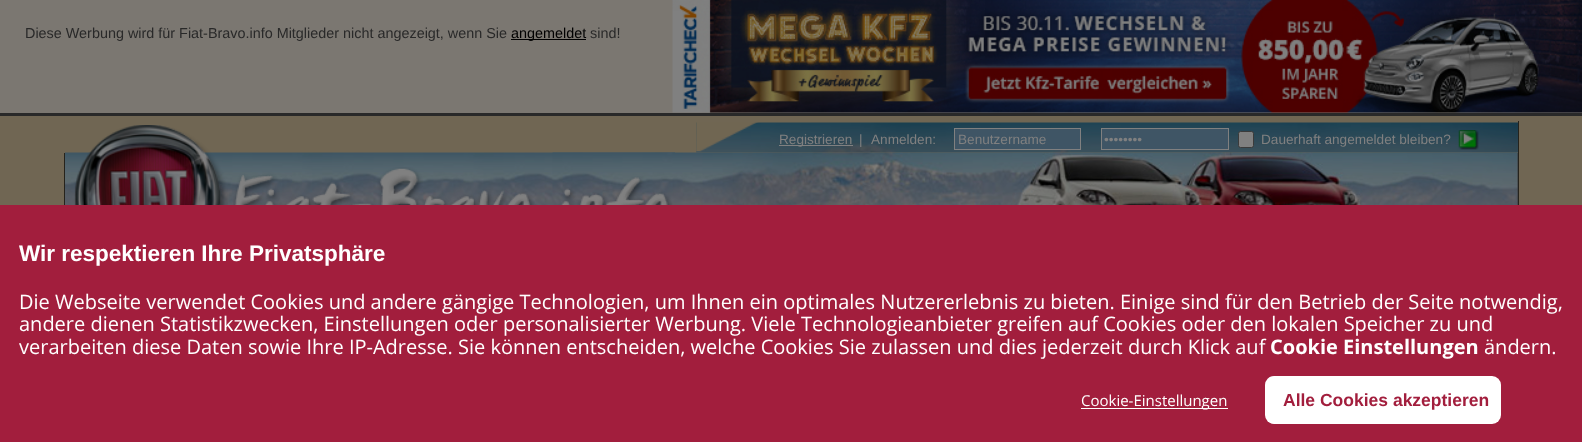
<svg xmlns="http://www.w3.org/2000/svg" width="1582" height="442">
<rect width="100%" height="100%" fill="#706653"/>
<rect y="113" width="1582" height="3" fill="#292929"/>
<rect width="1582" height="113" fill="#7b7771"/>
<text x="25" y="38" style="font-family:Liberation Sans;font-size:14.4px;fill:#292929">Diese Werbung wird für Fiat-Bravo.info Mitglieder nicht angezeigt, wenn Sie</text>
<rect x="511" y="39" width="75" height="1" fill="#000"/>
<text x="511" y="38" style="font-family:Liberation Sans;font-size:14.4px;fill:#000">angemeldet</text>
<text x="590" y="38" style="font-family:Liberation Sans;font-size:14.4px;fill:#292929">sind!</text>
<image x="672" y="0" width="910" height="113" href="media/1.png"/>
<rect x="1517" y="153" width="1" height="52" fill="#3c3c3c"/>
<rect x="64" y="153" width="1" height="52" fill="#26231c"/>
<image x="65" y="152" width="610" height="53" href="media/3.png"/>
<image x="74" y="125" width="154" height="80" href="media/2.png"/>
<image x="696" y="122" width="822" height="31" href="media/6.png"/>
<image x="552" y="152" width="966" height="53" href="media/4.png"/>
<image x="233" y="167" width="439" height="38" href="media/5.png"/>
<rect x="1518" y="121" width="1" height="84" fill="#26231c"/>
<image x="696" y="122" width="63" height="30" href="media/7.png"/>
<rect x="779" y="145" width="74" height="1" fill="#808080"/>
<text x="779" y="144" style="font-family:Liberation Sans;font-size:13.6px;fill:#808080">Registrieren</text>
<text x="859" y="144" style="font-family:Liberation Sans;font-size:13.6px;fill:#808080">|</text>
<text x="871" y="144" style="font-family:Liberation Sans;font-size:13.6px;fill:#808080">Anmelden:</text>
<rect x="954.5" y="128.5" width="126" height="21" fill="#3f5565" stroke="#808080"/>
<text x="958" y="144" style="font-family:Liberation Sans;font-size:13.6px;fill:#808080">Benutzername</text>
<rect x="1101.5" y="128.5" width="127" height="21" fill="#3f5565" stroke="#808080"/>
<text x="1104" y="144" style="font-family:Liberation Sans;font-size:13.6px;fill:#808080">••••••••</text>
<rect x="1238.5" y="131.5" width="15" height="16" rx="2" fill="#808080" stroke="#3b3b3b"/>
<text x="1261" y="144" style="font-family:Liberation Sans;font-size:13.6px;fill:#808080">Dauerhaft angemeldet bleiben?</text>
<image x="1458" y="130" width="21" height="20" href="media/8.png"/>
<rect y="205" width="1582" height="237" fill="#a21e3d"/>
<text x="19" y="261" style="font-family:Liberation Sans;font-size:22.5px;font-weight:bold;fill:#fff">Wir respektieren Ihre Privatsphäre</text>
<text x="19" y="309" style="font-family:Open Sans;font-size:20px;fill:#fff">Die Webseite verwendet Cookies und andere gängige Technologien, um Ihnen ein optimales Nutzererlebnis zu bieten. Einige sind für den Betrieb der Seite notwendig,</text>
<text x="19" y="331" style="font-family:Open Sans;font-size:20px;fill:#fff">andere dienen Statistikzwecken, Einstellungen oder personalisierter Werbung. Viele Technologieanbieter greifen auf Cookies oder den lokalen Speicher zu und</text>
<text x="19" y="354" style="font-family:Open Sans;font-size:20px;fill:#fff">verarbeiten diese Daten sowie Ihre IP-Adresse. Sie können entscheiden, welche Cookies Sie zulassen und dies jederzeit durch Klick auf</text>
<text x="1270" y="354" style="font-family:Open Sans;font-size:20px;font-weight:bold;fill:#fff">Cookie Einstellungen</text>
<text x="1484" y="354" style="font-family:Open Sans;font-size:20px;fill:#fff">ändern.</text>
<rect x="1081" y="408" width="147" height="1" fill="#fff"/>
<text x="1081" y="406" style="font-family:Open Sans;font-size:15px;fill:#fff">Cookie-Einstellungen</text>
<rect x="1265" y="376" width="236" height="48" rx="9" fill="#fff"/>
<text x="1283" y="406" style="font-family:Liberation Sans;font-size:17.5px;font-weight:bold;fill:#a21e3d">Alle Cookies akzeptieren</text>
</svg>
